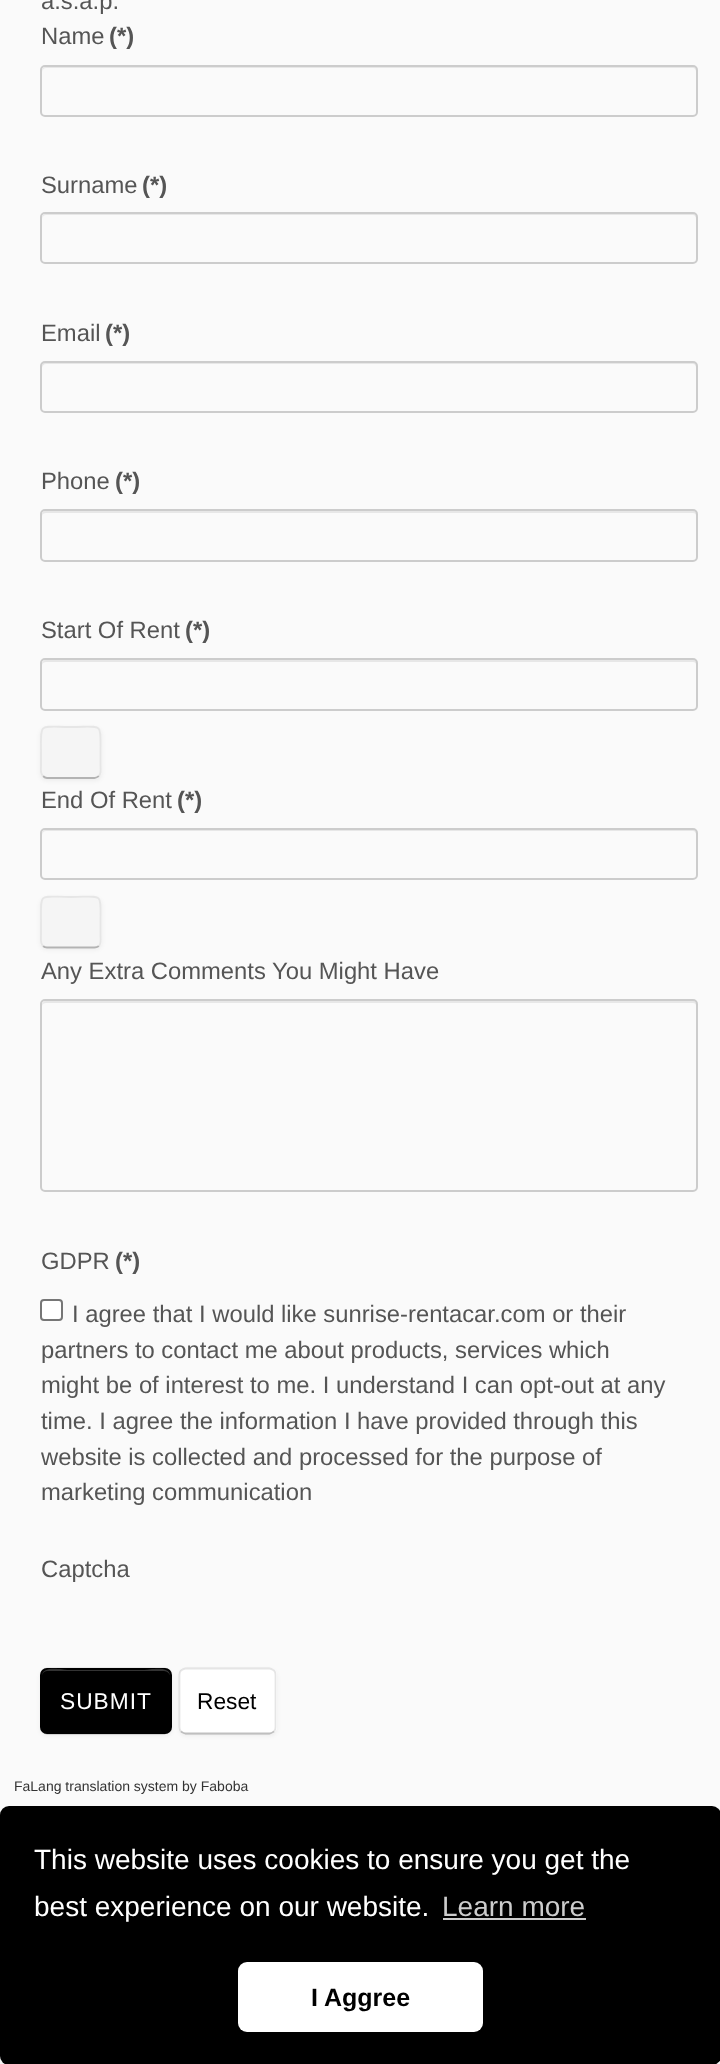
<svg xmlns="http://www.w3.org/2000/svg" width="720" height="2064">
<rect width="100%" height="100%" fill="#f2f2f2"/>
<rect width="720" height="1815" fill="#fafafa"/>
<text x="41" y="9" style="font-family:Liberation Sans;font-size:23.8px;fill:#555">a.s.a.p.</text>
<text x="41" y="44" style="font-family:Liberation Sans;font-size:23.8px;fill:#555">Name</text>
<text x="109" y="44" style="font-family:Liberation Sans;font-size:23.8px;font-weight:bold;fill:#555">(*)</text>
<path d="M46 68h647c2 0 3 2 3 4v43c1-1 1-2 1-3v-41c0-2-2-4-4-4h-647c-2 0-4 2-4 4v1c0-2 2-4 4-4z" fill="#e7e7e7"/>
<rect x="41" y="66" width="656" height="50" rx="4" fill="none" stroke="#ccc" stroke-width="2"/>
<text x="41" y="193" style="font-family:Liberation Sans;font-size:23.8px;fill:#555">Surname</text>
<text x="142" y="193" style="font-family:Liberation Sans;font-size:23.8px;font-weight:bold;fill:#555">(*)</text>
<path d="M46 215h647c2 0 3 2 3 4v43c1-1 1-2 1-3v-41c0-2-2-4-4-4h-647c-2 0-4 2-4 4v1c0-2 2-4 4-4z" fill="#e7e7e7"/>
<rect x="41" y="213" width="656" height="50" rx="4" fill="none" stroke="#ccc" stroke-width="2"/>
<text x="41" y="341" style="font-family:Liberation Sans;font-size:23.8px;fill:#555">Email</text>
<text x="105" y="341" style="font-family:Liberation Sans;font-size:23.8px;font-weight:bold;fill:#555">(*)</text>
<path d="M46 364h647c2 0 3 2 3 4v42c1-1 1-2 1-3v-41c0-2-2-4-4-4h-647c-2 0-4 2-4 4v2c0-2 2-4 4-4z" fill="#e7e7e7"/>
<rect x="41" y="362" width="656" height="50" rx="4" fill="none" stroke="#ccc" stroke-width="2"/>
<text x="41" y="489" style="font-family:Liberation Sans;font-size:23.8px;fill:#555">Phone</text>
<text x="115" y="489" style="font-family:Liberation Sans;font-size:23.8px;font-weight:bold;fill:#555">(*)</text>
<path d="M46 513h647c2 0 3 1 3 3v43l1-3v-43c-1-1-2-2-3-2h-648c-3 0-4 2-4 5c0-2 2-3 4-3z" fill="#e7e7e7"/>
<rect x="41" y="510" width="656" height="51" rx="4" fill="none" stroke="#ccc" stroke-width="2"/>
<text x="41" y="638" style="font-family:Liberation Sans;font-size:23.8px;fill:#555">Start Of Rent</text>
<text x="185" y="638" style="font-family:Liberation Sans;font-size:23.8px;font-weight:bold;fill:#555">(*)</text>
<path d="M46 662h647c2 0 3 1 3 3v43c1-1 1-2 1-3v-41c0-2-2-4-4-4h-647c-2 0-4 2-4 4v1c0-2 2-3 4-3z" fill="#e7e7e7"/>
<rect x="41" y="659" width="656" height="51" rx="4" fill="none" stroke="#ccc" stroke-width="2"/>
<rect x="40" y="728" width="62" height="53" rx="7" fill="#0000000d" filter="blur(2px)"/>
<rect x="40" y="726" width="62" height="53" rx="7" fill="#f5f5f5"/>
<path d="M99 776c-1.5 1-3 2-4.5 2h-47.5c-1.5 0-3-1-4-2" fill="none" stroke="#b3b3b3" stroke-width="1.8"/>
<path d="M43 776c-3-2.5-2-7.5-2-10.5v-13c0-31-3-25.5 30-25.5c32.5 0 29.5-5.5 29.5 25.5v13c0 3 1 8-1.5 10.5" fill="none" stroke="#e6e6e6" stroke-width="1.8"/>
<text x="41" y="808" style="font-family:Liberation Sans;font-size:23.8px;fill:#555">End Of Rent</text>
<text x="177" y="808" style="font-family:Liberation Sans;font-size:23.8px;font-weight:bold;fill:#555">(*)</text>
<path d="M46 831h647c2 0 3 2 3 4v43c1-1 1-2 1-3v-41c0-2-2-4-4-4h-647c-2 0-4 2-4 4v1c0-2 2-4 4-4z" fill="#e7e7e7"/>
<rect x="41" y="829" width="656" height="50" rx="4" fill="none" stroke="#ccc" stroke-width="2"/>
<rect x="40" y="898" width="62" height="52" rx="7" fill="#0000000d" filter="blur(2px)"/>
<rect x="40" y="896" width="62" height="53" rx="7" fill="#f5f5f5"/>
<path d="M99 946c-1.5 1-3 1.5-4.5 1.5h-47.5c-1.5 0-3-.5-4-1.5" fill="none" stroke="#b3b3b3" stroke-width="1.8"/>
<path d="M43 946c-3-3-2-7.5-2-11v-13c0-31-3-25 30-25c32.5 0 29.5-6 29.5 25v13c0 3.5 1 8-1.5 11" fill="none" stroke="#e6e6e6" stroke-width="1.8"/>
<text x="41" y="979" style="font-family:Liberation Sans;font-size:23.8px;fill:#555">Any Extra Comments You Might Have</text>
<path d="M46 1003h647c2 0 3 1 3 3v183c1-1 1-2 1-3v-181c0-2-2-4-4-4h-647c-2 0-4 2-4 4v1c0-2 2-3 4-3z" fill="#e7e7e7"/>
<rect x="41" y="1000" width="656" height="191" rx="4" fill="none" stroke="#ccc" stroke-width="2"/>
<text x="41" y="1269" style="font-family:Liberation Sans;font-size:23.8px;fill:#555">GDPR</text>
<text x="115" y="1269" style="font-family:Liberation Sans;font-size:23.8px;font-weight:bold;fill:#555">(*)</text>
<rect x="41" y="1300" width="21" height="20" rx="3" fill="#fff" stroke="#767676" stroke-width="2"/>
<text x="72" y="1322" style="font-family:Liberation Sans;font-size:23.8px;fill:#555">I agree that I would like sunrise-rentacar.com or their</text>
<text x="41" y="1358" style="font-family:Liberation Sans;font-size:23.8px;fill:#555">partners to contact me about products, services which</text>
<text x="41" y="1393" style="font-family:Liberation Sans;font-size:23.8px;fill:#555">might be of interest to me. I understand I can opt-out at any</text>
<text x="41" y="1429" style="font-family:Liberation Sans;font-size:23.8px;fill:#555">time. I agree the information I have provided through this</text>
<text x="41" y="1465" style="font-family:Liberation Sans;font-size:23.8px;fill:#555">website is collected and processed for the purpose of</text>
<text x="41" y="1500" style="font-family:Liberation Sans;font-size:23.8px;fill:#555">marketing communication</text>
<text x="41" y="1577" style="font-family:Liberation Sans;font-size:23.8px;fill:#555">Captcha</text>
<rect x="40" y="1670" width="132" height="66" rx="7" fill="#0000000d" filter="blur(2px)"/>
<rect x="40" y="1668" width="132" height="66" rx="7" fill="#000"/>
<path d="M47 1671h117c3 0 6 3 6 5c0-11-21-6-25-6h-78c-4 0-25-5-25 6c0-2 2-5 5-5z" fill="#333"/>
<path d="M169 1731.5c-1.5 1-3 2-4.5 2h-117.5c-1.5 0-3-1-4-2" fill="none" stroke="#00000040" stroke-width="1.8"/>
<path d="M43 1731.5c-1-1-2-2.5-2-4.5v-52c0-2 1-3.5 2-4.5c1-1 2.5-2 4-2h117.5c1.5 0 3 1 4.5 2c1 1 1.5 2.5 1.5 4.5v52c0 2-.5 3.5-1.5 4.5" fill="none" stroke="#0000001a" stroke-width="1.8"/>
<text x="60" y="1709" style="font-family:Liberation Sans;font-size:22.75px;letter-spacing:1px;fill:#fff">SUBMIT</text>
<rect x="179" y="1670" width="98" height="66" rx="7" fill="#0000000d" filter="blur(2px)"/>
<rect x="179" y="1668" width="98" height="66" rx="7" fill="#fff"/>
<path d="M274 1731.5c-1.5 1-3 2-4.5 2h-84c-1.5 0-3-1-4.5-2" fill="none" stroke="#00000040" stroke-width="1.8"/>
<path d="M181 1731.5c-1-1-1.5-2.5-1.5-4.5v-52c0-2 .5-3.5 1.5-4.5c1.5-1 3-2 4.5-2h84c1.5 0 3 1 4.5 2c1 1 1.5 2.5 1.5 4.5v52c0 2-.5 3.5-1.5 4.5" fill="none" stroke="#0000001a" stroke-width="1.8"/>
<text x="197" y="1709" style="font-family:Liberation Sans;font-size:22.75px;fill:#000">Reset</text>
<text x="14" y="1791" style="font-family:Liberation Sans;font-size:14px;fill:#333">FaLang translation system by Faboba</text>
<rect y="1806" width="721" height="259" rx="9" fill="#000"/>
<text x="34" y="1869" style="font-family:Liberation Sans;font-size:28px;fill:#fff">This website uses cookies to ensure you get the</text>
<text x="34" y="1916" style="font-family:Liberation Sans;font-size:28px;fill:#fff">best experience on our website.</text>
<text x="442" y="1916" style="font-family:Liberation Sans;font-size:28px;fill:#ccc">Learn more</text>
<rect x="443" y="1918" width="143" height="2" fill="#ccc"/>
<rect x="238" y="1962" width="245" height="70" rx="9" fill="#fff"/>
<text x="311" y="2006" style="font-family:Liberation Sans;font-size:25px;font-weight:bold;fill:#000">I Aggree</text>
</svg>
